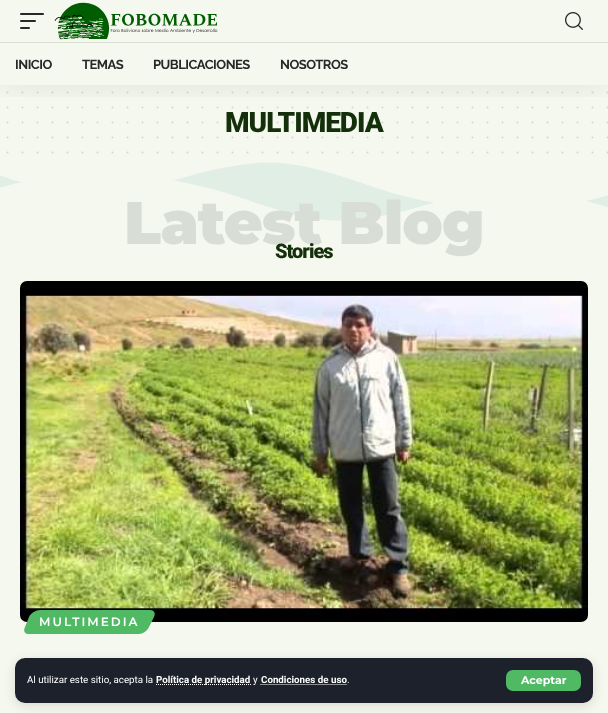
<svg xmlns="http://www.w3.org/2000/svg" width="608" height="713">
<defs>
<clipPath id="clip1"><rect x="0" y="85" width="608" height="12"/></clipPath>
<clipPath id="clip2"><rect y="172" width="608" height="50"/></clipPath>
</defs>
<rect width="100%" height="100%" fill="#f5f8ee"/>
<path d="M7.5 92.5h600.2" fill="none" stroke="#d3dacc" stroke-width="2" stroke-linecap="round" stroke-dasharray="0 15"/>
<path d="M7.5 107.5h600.2" fill="none" stroke="#d3dacc" stroke-width="2" stroke-linecap="round" stroke-dasharray="0 15"/>
<text x="225" y="132" style="font-family:Roboto;font-size:28px;font-weight:900;letter-spacing:-1px;fill:#14300b">MULTIMEDIA</text>
<path d="M7.5 122.5h600.2" fill="none" stroke="#132d0e26" stroke-width="2" stroke-linecap="round" stroke-dasharray="0 15"/>
<g clip-path="url(#clip1)">
<rect y="4" width="608" height="85" fill="#00000012" filter="blur(15px)"/>
</g>
<rect x="20" y="13" width="24" height="2" rx="1" fill="#282828"/>
<rect x="20" y="20" width="16" height="2" rx="1" fill="#282828"/>
<rect x="20" y="27" width="10" height="2" rx="1" fill="#282828"/>
<image x="54" y="2" width="164" height="38" href="media/1.png"/>
<image x="565" y="12" width="18" height="18" href="media/2.png"/>
<rect y="42" width="608" height="1" fill="#dbded5"/>
<text x="15" y="69" style="font-family:Raleway;font-size:13px;font-weight:bold;letter-spacing:-0.5px;fill:#282828">INICIO</text>
<text x="82" y="69" style="font-family:Raleway;font-size:13px;font-weight:bold;letter-spacing:-0.5px;fill:#282828">TEMAS</text>
<text x="153" y="69" style="font-family:Raleway;font-size:13px;font-weight:bold;letter-spacing:-0.5px;fill:#282828">PUBLICACIONES</text>
<text x="280" y="69" style="font-family:Raleway;font-size:13px;font-weight:bold;letter-spacing:-0.5px;fill:#282828">NOSOTROS</text>
<rect x="15" y="661" width="578" height="45" rx="10" fill="#0000001f" filter="blur(6px)"/>
<rect x="15" y="658" width="578" height="45" rx="10" fill="#1c212c"/>
<text x="27" y="683" style="font-family:Roboto;font-size:9.75px;fill:#fff">Al utilizar este sitio, acepta la</text>
<path d="M156 684.5h95" fill="none" stroke="#fff" stroke-dasharray="1 1"/>
<text x="156" y="683" style="font-family:Roboto;font-size:9.75px;font-weight:bold;fill:#fff">Política de privacidad</text>
<text x="253" y="683" style="font-family:Roboto;font-size:9.75px;fill:#fff">y</text>
<text x="261" y="683" style="font-family:Roboto;font-size:9.75px;font-weight:bold;fill:#fff">Condiciones de uso</text>
<path d="M260.5 684.5h86.5" fill="none" stroke="#fff" stroke-dasharray="1 1"/>
<text x="347" y="683" style="font-family:Roboto;font-size:9.75px;fill:#fff">.</text>
<rect x="506" y="670" width="75" height="21" rx="7" fill="#50b964"/>
<text x="521" y="684" style="font-family:Montserrat;font-size:11px;font-weight:bold;fill:#fff">Aceptar</text>
<path d="M7.5 137.5h600.2" fill="none" stroke="#d3dacc" stroke-width="2" stroke-linecap="round" stroke-dasharray="0 15"/>
<path d="M7.5 152.5h600.2" fill="none" stroke="#d3dacc" stroke-width="2" stroke-linecap="round" stroke-dasharray="0 15"/>
<rect y="162" width="608" height="59" fill="#e1eee5"/>
<path d="M256 163c49-4 95 18 140 31c69 19 144 22 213 1v-35h-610v15c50 19 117 20 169 7l32-9c19-5 37-8 56-10z" fill="#f5f8ee"/>
<g clip-path="url(#clip2)">
<path d="M352 220c-49 4-95-19-140-31c-69-19-144-22-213-1v35h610v-15c-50-19-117-20-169-7l-32 9c-19 5-37 8-56 10z" fill="#f5f8ee"/>
</g>
<text x="124" y="244" style="font-family:Montserrat;font-size:60px;font-weight:900;letter-spacing:-1px;fill:#d8ded5">Latest Blog</text>
<text x="275" y="258" style="font-family:Roboto;font-size:20px;font-weight:900;letter-spacing:-1px;fill:#14300b">Stories</text>
<image x="20" y="281" width="568" height="341" href="media/3.png"/>
<path d="M40 610h110c4 0 6 3 4 7l-5 10c-2 4-6 7-10 7h-111c-3 0-5-3-3-7l4-10c2-4 7-7 11-7z" fill="#50b964"/>
<text x="39" y="626" style="font-family:Montserrat;font-size:12px;font-weight:600;letter-spacing:2px;fill:#fff">MULTIMEDIA</text>
</svg>
